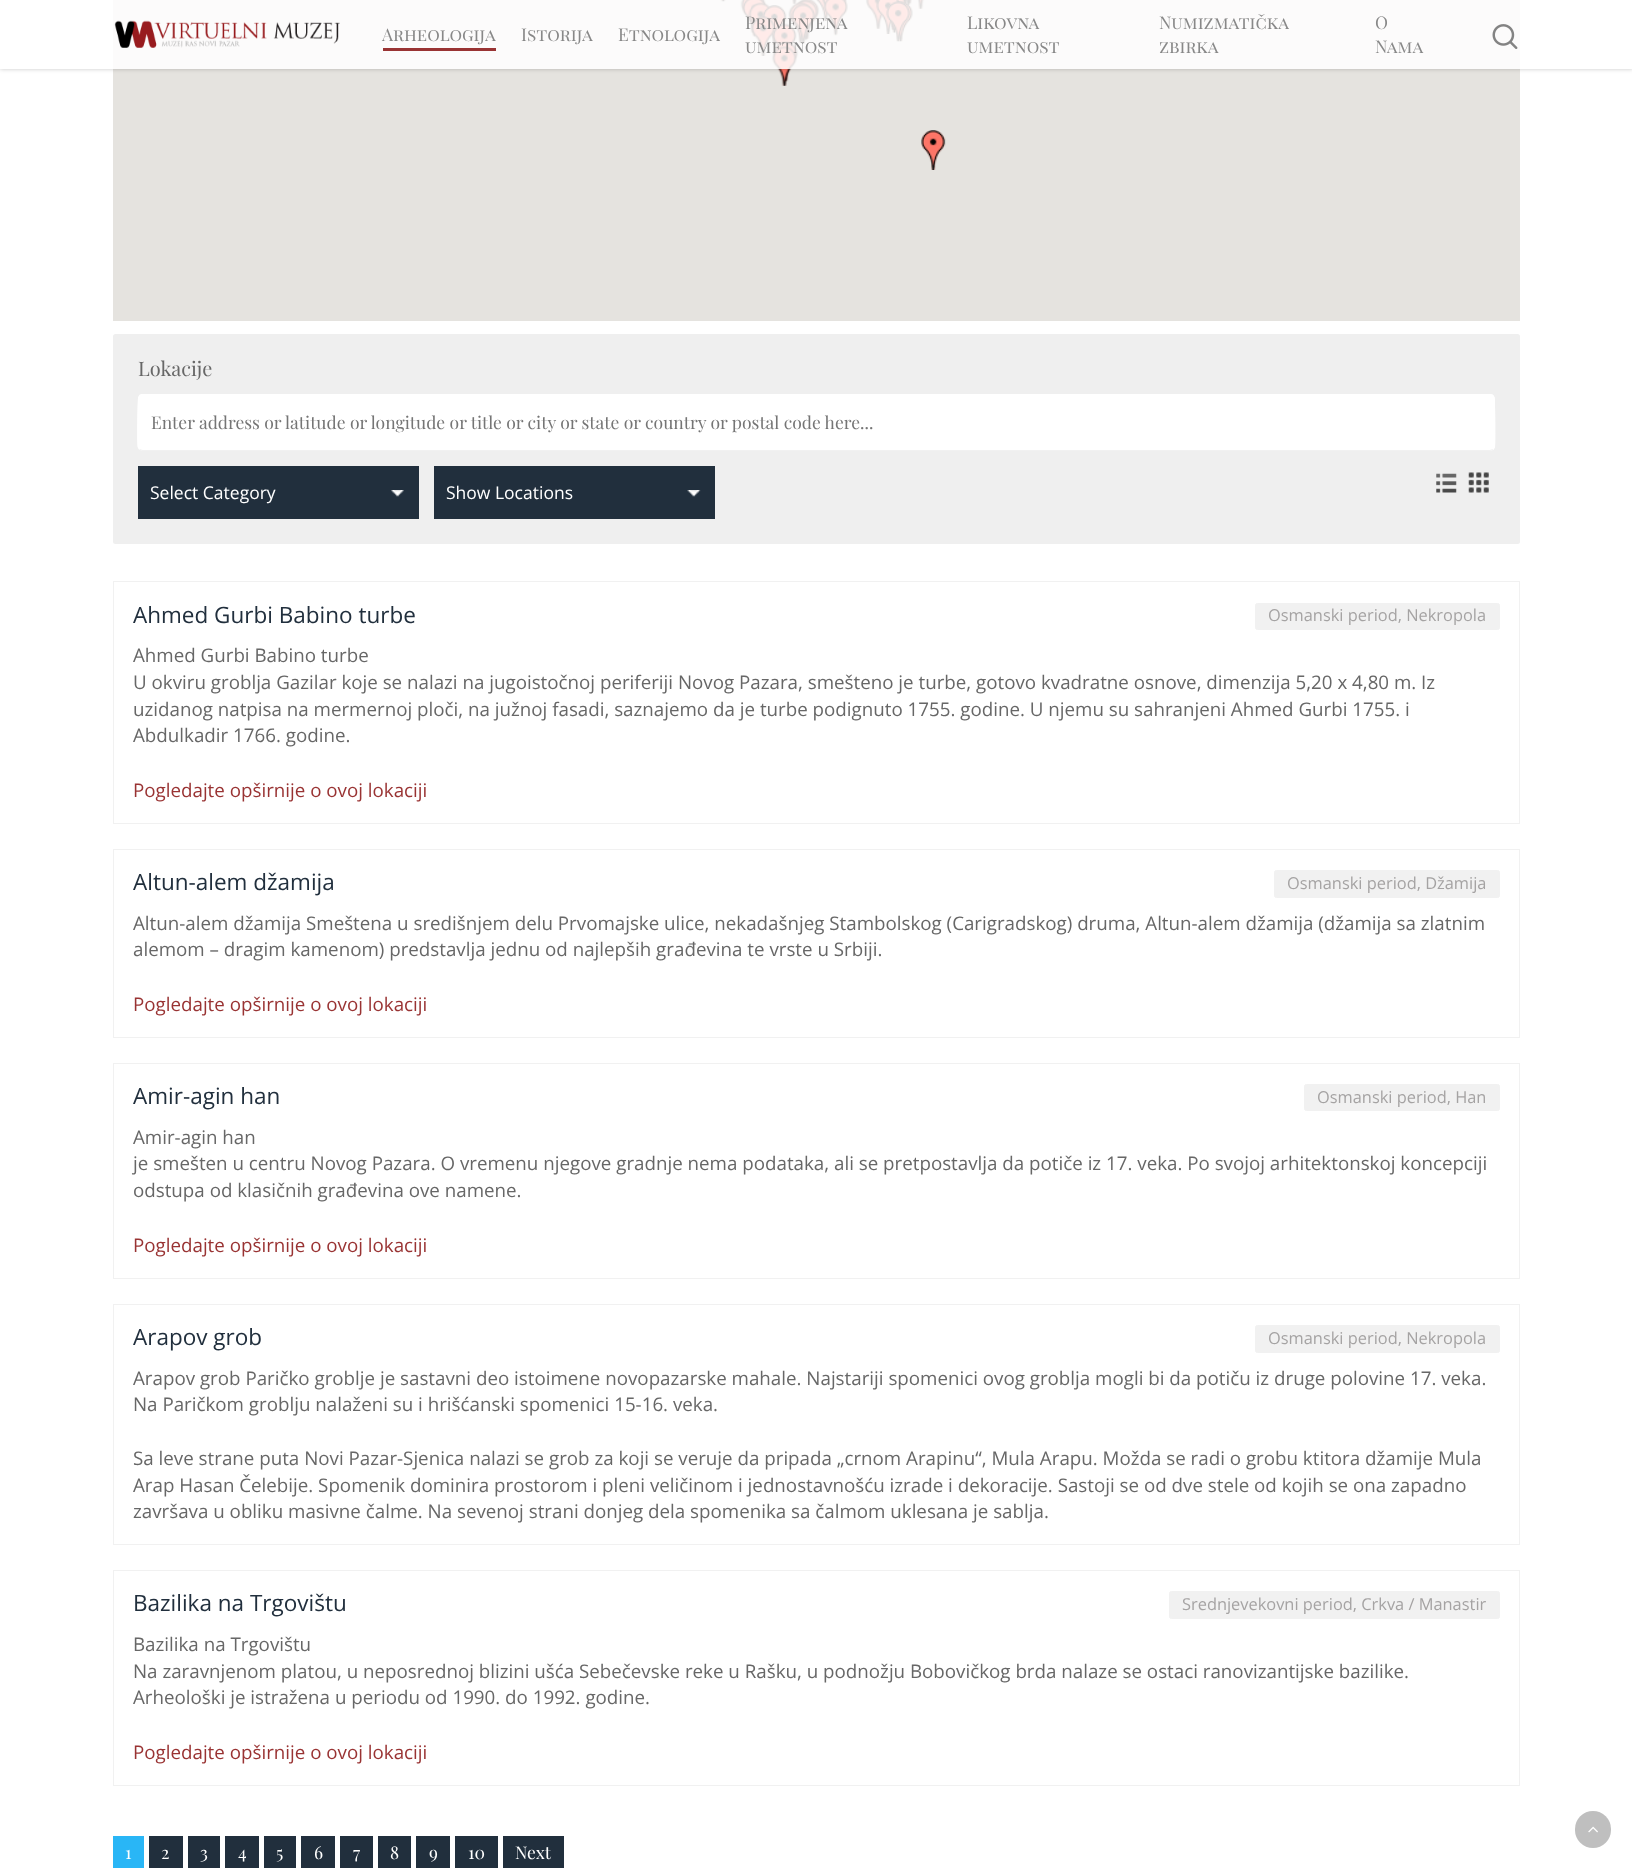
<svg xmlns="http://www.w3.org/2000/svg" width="1632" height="1868">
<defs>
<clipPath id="clip1"><path d="M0 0h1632v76h-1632zm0 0h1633v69h-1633z" clip-rule="evenodd"/></clipPath>
</defs>
<rect width="100%" height="100%" fill="#fff"/>
<rect x="113" width="1407" height="321" fill="#e5e3df"/>
<image x="720" y="0" width="6" height="2" href="media/3.png"/>
<image x="740" y="0" width="26" height="33" href="media/4.png"/>
<image x="742" y="0" width="25" height="37" href="media/5.png"/>
<image x="792" y="0" width="5" height="4" href="media/6.png"/>
<image x="816" y="0" width="13" height="22" href="media/9.png"/>
<image x="794" y="0" width="26" height="39" href="media/7.png"/>
<image x="794" y="0" width="24" height="41" href="media/8.png"/>
<image x="822" y="0" width="25" height="25" href="media/10.png"/>
<image x="822" y="0" width="25" height="28" href="media/11.png"/>
<image x="823" y="0" width="25" height="36" href="media/12.png"/>
<image x="865" y="0" width="18" height="29" href="media/13.png"/>
<image x="906" y="0" width="6" height="5" href="media/21.png"/>
<image x="906" y="0" width="5" height="5" href="media/22.png"/>
<image x="893" y="0" width="15" height="25" href="media/20.png"/>
<image x="892" y="0" width="15" height="26" href="media/19.png"/>
<image x="891" y="0" width="14" height="27" href="media/16.png"/>
<image x="891" y="0" width="16" height="31" href="media/17.png"/>
<image x="890" y="0" width="16" height="30" href="media/15.png"/>
<image x="891" y="0" width="16" height="33" href="media/18.png"/>
<image x="876" y="0" width="25" height="34" href="media/14.png"/>
<image x="917" y="0" width="8" height="9" href="media/23.png"/>
<image x="888" y="1" width="25" height="41" href="media/27.png"/>
<image x="886" y="1" width="25" height="41" href="media/24.png"/>
<image x="748" y="2" width="23" height="41" href="media/25.png"/>
<image x="788" y="2" width="25" height="41" href="media/26.png"/>
<image x="762" y="5" width="25" height="40" href="media/28.png"/>
<image x="791" y="3" width="25" height="41" href="media/29.png"/>
<image x="750" y="16" width="26" height="40" href="media/30.png"/>
<image x="772" y="23" width="25" height="24" href="media/31.png"/>
<image x="773" y="40" width="26" height="42" href="media/32.png"/>
<image x="771" y="46" width="26" height="40" href="media/33.png"/>
<g clip-path="url(#clip1)">
<rect width="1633" height="69" fill="#00000038" filter="blur(2px)"/>
</g>
<rect width="1632" height="69" fill="#ffffffdb"/>
<image x="114" y="20" width="226" height="28" href="media/1.png"/>
<text x="382" y="41" style="font-family:Playfair Display SC;font-size:17.5px;fill:#888">Arheologija</text>
<rect x="383" y="48" width="113" height="3" fill="#933"/>
<text x="521" y="41" style="font-family:Playfair Display SC;font-size:17.5px;fill:#888">Istorija</text>
<text x="618" y="41" style="font-family:Playfair Display SC;font-size:17.5px;fill:#888">Etnologija</text>
<text x="745" y="29" style="font-family:Playfair Display SC;font-size:17.5px;fill:#888">Primenjena</text>
<text x="745" y="53" style="font-family:Playfair Display SC;font-size:17.5px;fill:#888">umetnost</text>
<text x="967" y="29" style="font-family:Playfair Display SC;font-size:17.5px;fill:#888">Likovna</text>
<text x="967" y="53" style="font-family:Playfair Display SC;font-size:17.5px;fill:#888">umetnost</text>
<text x="1159" y="29" style="font-family:Playfair Display SC;font-size:17.5px;fill:#888">Numizmatička</text>
<text x="1159" y="53" style="font-family:Playfair Display SC;font-size:17.5px;fill:#888">zbirka</text>
<text x="1375" y="29" style="font-family:Playfair Display SC;font-size:17.5px;fill:#888">O</text>
<text x="1375" y="53" style="font-family:Playfair Display SC;font-size:17.5px;fill:#888">Nama</text>
<image x="1492" y="24" width="26" height="25" href="media/2.png"/>
<image x="921" y="130" width="25" height="40" href="media/34.png"/>
<rect x="113" y="334" width="1407" height="210" rx="2.5" fill="#efefef"/>
<text x="138" y="376" style="font-family:Playfair Display;font-size:20px;fill:#676767">Lokacije</text>
<rect x="138" y="394" width="1357" height="57" rx="5" fill="#fff"/>
<path d="M1493 449.5l-3 1h-1347.5l-3-1" fill="none" stroke="#f1f1f1" stroke-width="1.2"/>
<path d="M139.5 449.5l-1.5-3c-.5-4.5-.5-48 1-50c.5-1.5 2-2 3.5-2h1347.5c1.5 0 3 .5 3.5 2c1.5 2 1.5 45.5 1 50l-1.5 3" fill="none" stroke="#fff" stroke-width="1.2"/>
<text x="151" y="429" style="font-family:Playfair Display;font-size:17.5px;fill:#757575">Enter address or latitude or longitude or title or city or state or country or postal code here...</text>
<rect x="138" y="466" width="281" height="53" fill="#212f3d"/>
<image x="391" y="490" width="13" height="7" href="media/35.png"/>
<text x="150" y="499" style="font-family:Open Sans;font-size:17.5px;fill:#fff">Select Category</text>
<rect x="434" y="466" width="281" height="53" fill="#212f3d"/>
<image x="687" y="490" width="14" height="7" href="media/36.png"/>
<text x="446" y="499" style="font-family:Open Sans;font-size:17.5px;fill:#fff">Show Locations</text>
<image x="1436" y="473" width="21" height="20" href="media/37.png"/>
<image x="1468" y="472" width="21" height="21" href="media/38.png"/>
<rect x="113.5" y="581.5" width="1406" height="242" fill="none" stroke="#f1f1f1"/>
<text x="133" y="623" style="font-family:Open Sans;font-size:22.5px;fill:#212f3d">Ahmed Gurbi Babino turbe</text>
<rect x="1255.5" y="603.5" width="244" height="26" rx="2" fill="#f1f1f1" stroke="#f1f1f1"/>
<text x="1268" y="621" style="font-family:Open Sans;font-size:16.4px;fill:#a5a3a3">Osmanski period, Nekropola</text>
<text x="133" y="662" style="font-family:Open Sans;font-size:18.75px;fill:#676767">Ahmed Gurbi Babino turbe</text>
<text x="133" y="689" style="font-family:Open Sans;font-size:18.75px;fill:#676767">U okviru groblja Gazilar koje se nalazi na jugoistočnoj periferiji Novog Pazara, smešteno je turbe, gotovo kvadratne osnove, dimenzija 5,20 х 4,80 m. Iz</text>
<text x="133" y="716" style="font-family:Open Sans;font-size:18.75px;fill:#676767">uzidanog natpisa na mermernoj ploči, na južnoj fasadi, saznajemo da je turbe podignuto 1755. godine. U njemu su sahranjeni Ahmed Gurbi 1755. i</text>
<text x="133" y="742" style="font-family:Open Sans;font-size:18.75px;fill:#676767">Abdulkadir 1766. godine.</text>
<text x="133" y="797" style="font-family:Open Sans;font-size:18.75px;fill:#933">Pogledajte opširnije o ovoj lokaciji</text>
<rect x="113.5" y="849.5" width="1406" height="188" fill="none" stroke="#f1f1f1"/>
<text x="133" y="890" style="font-family:Open Sans;font-size:22.5px;fill:#212f3d">Altun-alem džamija</text>
<rect x="1274.5" y="870.5" width="225" height="27" rx="2" fill="#f1f1f1" stroke="#f1f1f1"/>
<text x="1287" y="889" style="font-family:Open Sans;font-size:16.4px;fill:#a5a3a3">Osmanski period, Džamija</text>
<text x="133" y="930" style="font-family:Open Sans;font-size:18.75px;fill:#676767">Altun-alem džamija Smeštena u središnjem delu Prvomajske ulice, nekadašnjeg Stambolskog (Carigradskog) druma, Altun-alem džamija (džamija sa zlatnim</text>
<text x="133" y="956" style="font-family:Open Sans;font-size:18.75px;fill:#676767">alemom – dragim kamenom) predstavlja jednu od najlepših građevina te vrste u Srbiji.</text>
<text x="133" y="1011" style="font-family:Open Sans;font-size:18.75px;fill:#933">Pogledajte opširnije o ovoj lokaciji</text>
<rect x="113.5" y="1063.5" width="1406" height="215" fill="none" stroke="#f1f1f1"/>
<text x="133" y="1104" style="font-family:Open Sans;font-size:22.5px;fill:#212f3d">Amir-agin han</text>
<rect x="1304.5" y="1084.5" width="195" height="26" rx="2" fill="#f1f1f1" stroke="#f1f1f1"/>
<text x="1317" y="1103" style="font-family:Open Sans;font-size:16.4px;fill:#a5a3a3">Osmanski period, Han</text>
<text x="133" y="1144" style="font-family:Open Sans;font-size:18.75px;fill:#676767">Amir-agin han</text>
<text x="133" y="1170" style="font-family:Open Sans;font-size:18.75px;fill:#676767">je smešten u centru Novog Pazara. O vremenu njegove gradnje nema podataka, ali se pretpostavlja da potiče iz 17. veka. Po svojoj arhitektonskoj koncepciji</text>
<text x="133" y="1197" style="font-family:Open Sans;font-size:18.75px;fill:#676767">odstupa od klasičnih građevina ove namene.</text>
<text x="133" y="1252" style="font-family:Open Sans;font-size:18.75px;fill:#933">Pogledajte opširnije o ovoj lokaciji</text>
<rect x="113.5" y="1304.5" width="1406" height="240" fill="none" stroke="#f1f1f1"/>
<text x="133" y="1345" style="font-family:Open Sans;font-size:22.5px;fill:#212f3d">Arapov grob</text>
<rect x="1255.5" y="1325.5" width="244" height="27" rx="2" fill="#f1f1f1" stroke="#f1f1f1"/>
<text x="1268" y="1344" style="font-family:Open Sans;font-size:16.4px;fill:#a5a3a3">Osmanski period, Nekropola</text>
<text x="133" y="1385" style="font-family:Open Sans;font-size:18.75px;fill:#676767">Arapov grob Paričko groblje je sastavni deo istoimene novopazarske mahale. Najstariji spomenici ovog groblja mogli bi da potiču iz druge polovine 17. veka.</text>
<text x="133" y="1411" style="font-family:Open Sans;font-size:18.75px;fill:#676767">Na Paričkom groblju nalaženi su i hrišćanski spomenici 15-16. veka.</text>
<text x="133" y="1465" style="font-family:Open Sans;font-size:18.75px;fill:#676767">Sa leve strane puta Novi Pazar-Sjenica nalazi se grob za koji se veruje da pripada „crnom Arapinu“, Mula Arapu. Možda se radi o grobu ktitora džamije Mula</text>
<text x="133" y="1492" style="font-family:Open Sans;font-size:18.75px;fill:#676767">Arap Hasan Čelebije. Spomenik dominira prostorom i pleni veličinom i jednostavnošću izrade i dekoracije. Sastoji se od dve stele od kojih se ona zapadno</text>
<text x="133" y="1518" style="font-family:Open Sans;font-size:18.75px;fill:#676767">završava u obliku masivne čalme. Na sevenoj strani donjeg dela spomenika sa čalmom uklesana je sablja.</text>
<rect x="113.5" y="1570.5" width="1406" height="215" fill="none" stroke="#f1f1f1"/>
<text x="133" y="1611" style="font-family:Open Sans;font-size:22.5px;fill:#212f3d">Bazilika na Trgovištu</text>
<rect x="1169.5" y="1591.5" width="330" height="27" rx="2" fill="#f1f1f1" stroke="#f1f1f1"/>
<text x="1182" y="1610" style="font-family:Open Sans;font-size:16.4px;fill:#a5a3a3">Srednjevekovni period, Crkva / Manastir</text>
<text x="133" y="1651" style="font-family:Open Sans;font-size:18.75px;fill:#676767">Bazilika na Trgovištu</text>
<text x="133" y="1678" style="font-family:Open Sans;font-size:18.75px;fill:#676767">Na zaravnjenom platou, u neposrednoj blizini ušća Sebečevske reke u Rašku, u podnožju Bobovičkog brda nalaze se ostaci ranovizantijske bazilike.</text>
<text x="133" y="1704" style="font-family:Open Sans;font-size:18.75px;fill:#676767">Arheološki je istražena u periodu od 1990. do 1992. godine.</text>
<text x="133" y="1759" style="font-family:Open Sans;font-size:18.75px;fill:#933">Pogledajte opširnije o ovoj lokaciji</text>
<rect x="113" y="1836" width="31" height="32" fill="#29b6f6"/>
<text x="125" y="1859" style="font-family:Playfair Display;font-size:17.5px;fill:#fff">1</text>
<rect x="149" y="1836" width="34" height="32" fill="#212f3d"/>
<text x="161" y="1859" style="font-family:Playfair Display;font-size:17.5px;fill:#fff">2</text>
<rect x="188" y="1836" width="32" height="32" fill="#212f3d"/>
<text x="200" y="1859" style="font-family:Playfair Display;font-size:17.5px;fill:#fff">3</text>
<rect x="225" y="1836" width="34" height="32" fill="#212f3d"/>
<text x="238" y="1859" style="font-family:Playfair Display;font-size:17.5px;fill:#fff">4</text>
<rect x="264" y="1836" width="32" height="32" fill="#212f3d"/>
<text x="276" y="1859" style="font-family:Playfair Display;font-size:17.5px;fill:#fff">5</text>
<rect x="301" y="1836" width="34" height="32" fill="#212f3d"/>
<text x="314" y="1859" style="font-family:Playfair Display;font-size:17.5px;fill:#fff">6</text>
<rect x="340" y="1836" width="33" height="32" fill="#212f3d"/>
<text x="353" y="1859" style="font-family:Playfair Display;font-size:17.5px;fill:#fff">7</text>
<rect x="378" y="1836" width="33" height="32" fill="#212f3d"/>
<text x="390" y="1859" style="font-family:Playfair Display;font-size:17.5px;fill:#fff">8</text>
<rect x="416" y="1836" width="34" height="32" fill="#212f3d"/>
<text x="429" y="1859" style="font-family:Playfair Display;font-size:17.5px;fill:#fff">9</text>
<rect x="455" y="1836" width="43" height="32" fill="#212f3d"/>
<text x="468" y="1859" style="font-family:Playfair Display;font-size:17.5px;fill:#fff">10</text>
<rect x="503" y="1836" width="61" height="32" fill="#212f3d"/>
<text x="515" y="1859" style="font-family:Playfair Display;font-size:17.5px;fill:#fff">Next</text>
<rect x="1575" y="1811" width="36" height="37" rx="18" fill="#bfbfbf"/>
<image x="1588" y="1826" width="10" height="7" href="media/39.png"/>
</svg>
